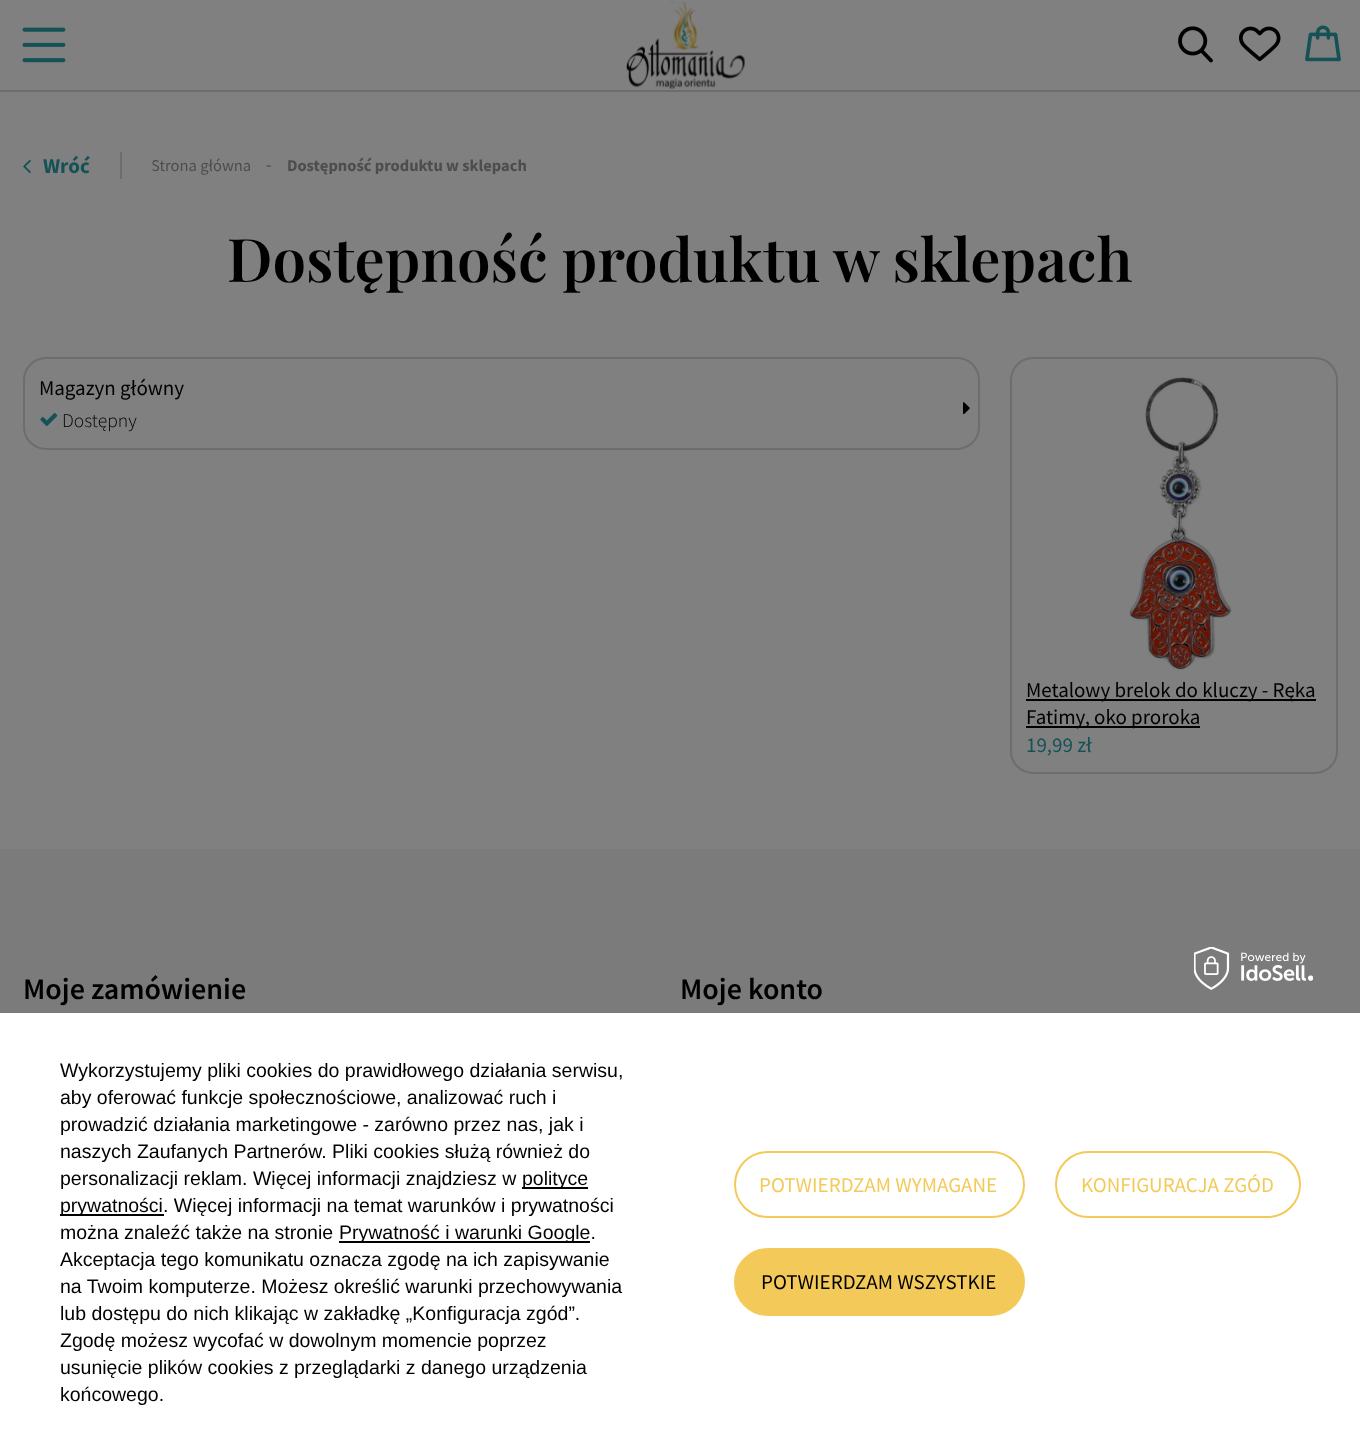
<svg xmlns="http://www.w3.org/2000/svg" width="1360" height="1453">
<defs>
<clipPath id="clip1"><rect x="152" y="143" width="397" height="45" rx="22.5"/></clipPath>
</defs>
<rect width="100%" height="100%" fill="#808080"/>
<rect y="90" width="1360" height="2" fill="#6d6d6d"/>
<image x="22" y="27" width="44" height="36" href="media/1.png"/>
<image x="626" y="1" width="119" height="88" href="media/2.png"/>
<image x="1178" y="26" width="35" height="37" href="media/3.png"/>
<image x="1239" y="26" width="42" height="36" href="media/4.png"/>
<image x="1305" y="25" width="36" height="37" href="media/5.png"/>
<rect x="120" y="152" width="2" height="27" fill="#6d6d6d"/>
<image x="23" y="159" width="8" height="15" href="media/6.png"/>
<text x="43" y="173" style="font-family:Source Sans Pro;font-size:21px;font-weight:bold;fill:#145256">Wróć</text>
<g clip-path="url(#clip1)">
<text x="151" y="171" style="font-family:Source Sans Pro;font-size:16.5px;fill:#4d4d4d">Strona główna</text>
</g>
<text x="266" y="170" style="font-family:Liberation Serif;font-size:16.5px;fill:#4d4d4d">-</text>
<text x="287" y="171" style="font-family:Source Sans Pro;font-size:16.5px;font-weight:bold;fill:#4d4d4d">Dostępność produktu w sklepach</text>
<text x="227" y="282" style="font-family:Playfair Display;font-size:60px;font-weight:600;fill:#000">Dostępność produktu w sklepach</text>
<rect x="24" y="358" width="955" height="91" rx="22" fill="none" stroke="#6d6d6d" stroke-width="2"/>
<text x="39" y="395" style="font-family:Source Sans Pro;font-size:21px;fill:#000">Magazyn główny</text>
<image x="963" y="402" width="7" height="13" href="media/7.png"/>
<image x="40" y="413" width="18" height="13" href="media/8.png"/>
<text x="62" y="427" style="font-family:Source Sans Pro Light;font-size:19.5px;font-weight:300;fill:#000">Dostępny</text>
<rect x="1011" y="358" width="326" height="415" rx="22" fill="none" stroke="#6d6d6d" stroke-width="2"/>
<image x="1129" y="377" width="103" height="294" href="media/9.png"/>
<rect x="1026" y="699" width="290" height="2" fill="#000"/>
<text x="1026" y="697" style="font-family:Source Sans Pro;font-size:21px;fill:#000">Metalowy brelok do kluczy - Ręka</text>
<rect x="1026" y="726" width="174" height="2" fill="#000"/>
<text x="1026" y="724" style="font-family:Source Sans Pro;font-size:21px;fill:#000">Fatimy, oko proroka</text>
<text x="1026" y="752" style="font-family:Source Sans Pro;font-size:21px;fill:#145256">19,99 zł</text>
<rect y="849" width="1360" height="164" fill="#7b7b7b"/>
<text x="23" y="999" style="font-family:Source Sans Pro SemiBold;font-size:30px;font-weight:600;fill:#000">Moje zamówienie</text>
<text x="680" y="999" style="font-family:Source Sans Pro SemiBold;font-size:30px;font-weight:600;fill:#000">Moje konto</text>
<rect y="1013" width="1360" height="440" fill="#fff"/>
<image x="1194" y="947" width="119" height="43" href="media/10.png"/>
<text x="60" y="1077" style="font-family:Liberation Sans;font-size:19.5px;fill:#000">Wykorzystujemy pliki cookies do prawidłowego działania serwisu,</text>
<text x="60" y="1104" style="font-family:Liberation Sans;font-size:19.5px;fill:#000">aby oferować funkcje społecznościowe, analizować ruch i</text>
<text x="60" y="1131" style="font-family:Liberation Sans;font-size:19.5px;fill:#000">prowadzić działania marketingowe - zarówno przez nas, jak i</text>
<text x="60" y="1158" style="font-family:Liberation Sans;font-size:19.5px;fill:#000">naszych Zaufanych Partnerów. Pliki cookies służą również do</text>
<text x="60" y="1185" style="font-family:Liberation Sans;font-size:19.5px;fill:#000">personalizacji reklam. Więcej informacji znajdziesz w</text>
<rect x="522" y="1187" width="66" height="2" fill="#000"/>
<text x="522" y="1185" style="font-family:Liberation Sans;font-size:19.5px;fill:#000">polityce</text>
<rect x="60" y="1214" width="104" height="2" fill="#000"/>
<text x="60" y="1212" style="font-family:Liberation Sans;font-size:19.5px;fill:#000">prywatności. Więcej informacji na temat warunków i prywatności</text>
<text x="60" y="1239" style="font-family:Liberation Sans;font-size:19.5px;fill:#000">można znaleźć także na stronie</text>
<rect x="339" y="1241" width="251" height="2" fill="#000"/>
<text x="339" y="1239" style="font-family:Liberation Sans;font-size:19.5px;fill:#000">Prywatność i warunki Google.</text>
<text x="60" y="1266" style="font-family:Liberation Sans;font-size:19.5px;fill:#000">Akceptacja tego komunikatu oznacza zgodę na ich zapisywanie</text>
<text x="60" y="1293" style="font-family:Liberation Sans;font-size:19.5px;fill:#000">na Twoim komputerze. Możesz określić warunki przechowywania</text>
<text x="60" y="1320" style="font-family:Liberation Sans;font-size:19.5px;fill:#000">lub dostępu do nich klikając w zakładkę „Konfiguracja zgód”.</text>
<text x="60" y="1347" style="font-family:Liberation Sans;font-size:19.5px;fill:#000">Zgodę możesz wycofać w dowolnym momencie poprzez</text>
<text x="60" y="1374" style="font-family:Liberation Sans;font-size:19.5px;fill:#000">usunięcie plików cookies z przeglądarki z danego urządzenia</text>
<text x="60" y="1401" style="font-family:Liberation Sans;font-size:19.5px;fill:#000">końcowego.</text>
<rect x="735" y="1152" width="289" height="65" rx="32.5" fill="none" stroke="#f3ca5a" stroke-width="2"/>
<text x="759" y="1192" style="font-family:Source Sans Pro;font-size:21px;fill:#f3ca5a">POTWIERDZAM WYMAGANE</text>
<rect x="1056" y="1152" width="244" height="65" rx="32.5" fill="none" stroke="#f3ca5a" stroke-width="2"/>
<text x="1081" y="1192" style="font-family:Source Sans Pro;font-size:21px;fill:#f3ca5a">KONFIGURACJA ZGÓD</text>
<rect x="735" y="1249" width="289" height="66" rx="33" fill="#f3ca5a" stroke="#f3ca5a" stroke-width="2"/>
<text x="761" y="1289" style="font-family:Source Sans Pro;font-size:21px;fill:#000">POTWIERDZAM WSZYSTKIE</text>
</svg>
